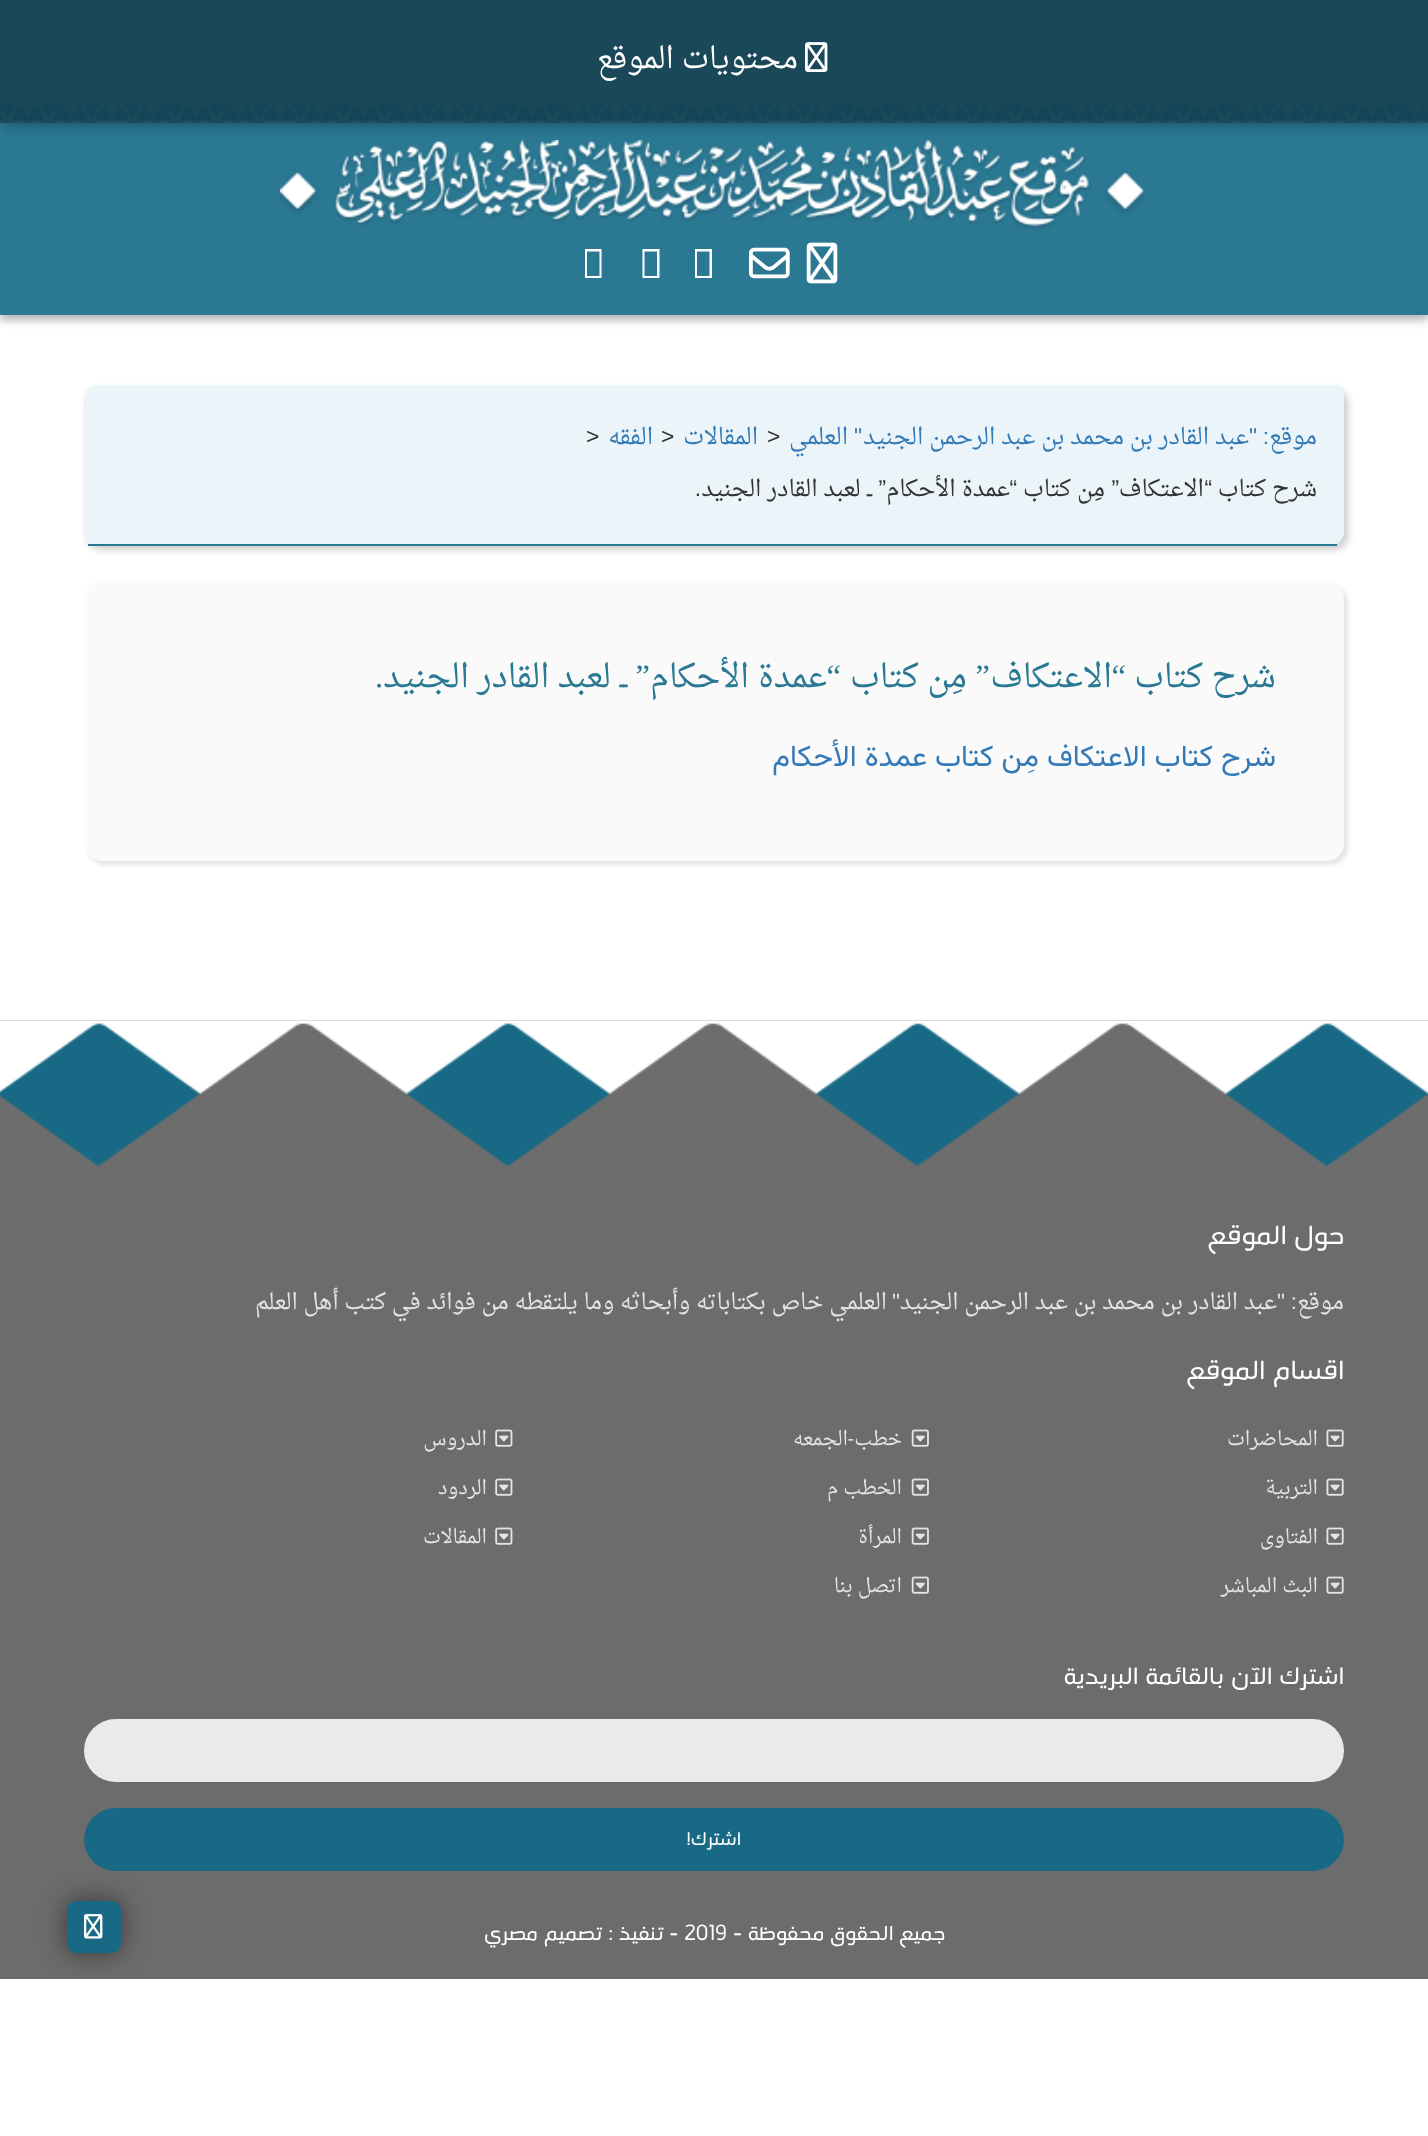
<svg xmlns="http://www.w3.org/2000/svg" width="1428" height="2136">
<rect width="100%" height="100%" fill="#fff"/>
<rect y="128" width="1428" height="192" fill="#0000004d" filter="blur(4.5px)"/>
<rect y="123" width="1428" height="192" fill="#2b7893"/>
<rect x="4" y="5" width="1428" height="123" fill="#00000033" filter="blur(5px)"/>
<rect width="1428" height="123" fill="#26677e"/>
<image x="0" y="105" width="1428" height="18" href="media/1.png"/>
<rect width="1428" height="123" fill="#0000004d"/>
<image x="805" y="42" width="23" height="30" href="media/2.png"/>
<text x="798" y="68" style="font-family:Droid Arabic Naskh;font-size:29.8px;direction:rtl;fill:#fff">محتويات الموقع</text>
<image x="280" y="140" width="865" height="89" href="media/3.png"/>
<image x="806" y="242" width="32" height="42" href="media/4.png"/>
<image x="749" y="247" width="41" height="32" href="media/5.png"/>
<path d="M695 278v-29h17v29zm2-2h12.5v-24.5h-12.5z" fill="#fff"/>
<path d="M642.5 278v-29h17v29zm2-2h12.5v-24.5h-12.5z" fill="#fff"/>
<path d="M585 278v-29h16.5v29zm2-2h12.5v-24.5h-12.5z" fill="#fff"/>
<rect x="88" y="389" width="1260" height="161" rx="14" fill="#00000033" filter="blur(3.5px)"/>
<path d="M98 385h1239c4 0 7 3 7 7v140c0 7.5-6.5 14-14 14h-1239c-4 0-7-3-7-7v-140c0-7.5 6.5-14 14-14z" fill="#ebf4f8"/>
<rect x="88" y="544" width="1249" height="2" fill="#2c7893"/>
<text x="1317" y="444" style="font-family:Droid Arabic Naskh;font-size:22.75px;direction:rtl;fill:#337ab7">موقع</text>
<text x="1269" y="444" style="font-family:Liberation Sans;font-size:22.75px;direction:rtl;fill:#337ab7">:</text>
<text x="1257" y="444" style="font-family:Liberation Sans;font-size:22.75px;direction:rtl;fill:#337ab7">"</text>
<text x="1249" y="444" style="font-family:Droid Arabic Naskh;font-size:22.75px;direction:rtl;fill:#337ab7">عبد القادر بن محمد بن عبد الرحمن الجنيد</text>
<text x="862" y="444" style="font-family:Liberation Sans;font-size:22.75px;direction:rtl;fill:#337ab7">"</text>
<text x="848" y="444" style="font-family:Droid Arabic Naskh;font-size:22.75px;direction:rtl;fill:#337ab7">العلمي</text>
<text x="767" y="444" style="font-family:Liberation Sans;font-size:22.75px;fill:#333">&gt;</text>
<text x="758" y="444" style="font-family:Droid Arabic Naskh;font-size:22.75px;direction:rtl;fill:#337ab7">المقالات</text>
<text x="661" y="444" style="font-family:Liberation Sans;font-size:22.75px;fill:#333">&gt;</text>
<text x="653" y="444" style="font-family:Droid Arabic Naskh;font-size:22.75px;direction:rtl;fill:#337ab7">الفقه</text>
<text x="586" y="444" style="font-family:Liberation Sans;font-size:22.75px;fill:#333">&gt;</text>
<text x="1317" y="496" style="font-family:Droid Arabic Naskh;font-size:22.75px;direction:rtl;fill:#333">شرح كتاب</text>
<text x="1212" y="496" style="font-family:Liberation Sans;font-size:22.75px;direction:rtl;fill:#333">“</text>
<text x="1204" y="496" style="font-family:Droid Arabic Naskh;font-size:22.75px;direction:rtl;fill:#333">الاعتكاف</text>
<text x="1119" y="496" style="font-family:Liberation Sans;font-size:22.75px;direction:rtl;fill:#333">”</text>
<text x="1105" y="496" style="font-family:Droid Arabic Naskh;font-size:22.75px;direction:rtl;fill:#333">مِن كتاب</text>
<text x="1017" y="496" style="font-family:Liberation Sans;font-size:22.75px;direction:rtl;fill:#333">“</text>
<text x="1010" y="496" style="font-family:Droid Arabic Naskh;font-size:22.75px;direction:rtl;fill:#333">عمدة الأحكام</text>
<text x="886" y="496" style="font-family:Liberation Sans;font-size:22.75px;direction:rtl;fill:#333">”</text>
<text x="872" y="496" style="font-family:Droid Arabic Naskh;font-size:22.75px;direction:rtl;fill:#333">ــ لعبد القادر الجنيد</text>
<text x="701" y="496" style="font-family:Liberation Sans;font-size:22.75px;direction:rtl;fill:#333">.</text>
<rect x="88" y="585" width="1260" height="280" rx="18" fill="#0000001a" filter="blur(2px)"/>
<rect x="84" y="581" width="1260" height="280" rx="18" fill="#fafafa"/>
<text x="1276" y="687" style="font-family:Droid Arabic Naskh;font-size:32.5px;direction:rtl;fill:#297894">شرح كتاب</text>
<text x="1126" y="687" style="font-family:Liberation Serif;font-size:32.5px;direction:rtl;fill:#297894">“</text>
<text x="1112" y="687" style="font-family:Droid Arabic Naskh;font-size:32.5px;direction:rtl;fill:#297894">الاعتكاف</text>
<text x="990" y="687" style="font-family:Liberation Serif;font-size:32.5px;direction:rtl;fill:#297894">”</text>
<text x="967" y="687" style="font-family:Droid Arabic Naskh;font-size:32.5px;direction:rtl;fill:#297894">مِن كتاب</text>
<text x="841" y="687" style="font-family:Liberation Serif;font-size:32.5px;direction:rtl;fill:#297894">“</text>
<text x="827" y="687" style="font-family:Droid Arabic Naskh;font-size:32.5px;direction:rtl;fill:#297894">عمدة الأحكام</text>
<text x="650" y="687" style="font-family:Liberation Serif;font-size:32.5px;direction:rtl;fill:#297894">”</text>
<text x="627" y="687" style="font-family:Droid Arabic Naskh;font-size:32.5px;direction:rtl;fill:#297894">ــ لعبد القادر الجنيد</text>
<text x="383" y="687" style="font-family:Liberation Serif;font-size:32.5px;direction:rtl;fill:#297894">.</text>
<text x="1276" y="766" style="font-family:Vazirmatn;font-size:29.8px;direction:rtl;fill:#337ab7">شرح كتاب الاعتكاف مِن كتاب عمدة الأحكام</text>
<rect y="1020" width="1428" height="959" fill="#6c6c6c"/>
<image x="0" y="1020" width="1428" height="147" href="media/6.png"/>
<text x="1344" y="1244" style="font-family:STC;font-size:29.8px;direction:rtl;fill:#fff">حول الموقع</text>
<text x="1344" y="1309" style="font-family:Droid Arabic Naskh;font-size:22.25px;direction:rtl;fill:#e4e4e4">موقع</text>
<text x="1285" y="1309" style="font-family:Liberation Sans;font-size:22.25px;direction:rtl;fill:#e4e4e4">"</text>
<text x="1277" y="1309" style="font-family:Droid Arabic Naskh;font-size:22.25px;direction:rtl;fill:#e4e4e4">عبد القادر بن محمد بن عبد الرحمن الجنيد</text>
<text x="900" y="1309" style="font-family:Liberation Sans;font-size:22.25px;direction:rtl;fill:#e4e4e4">"</text>
<text x="887" y="1309" style="font-family:Droid Arabic Naskh;font-size:22.25px;direction:rtl;fill:#e4e4e4">العلمي خاص بكتاباته وأبحاثه وما يلتقطه من فوائد في كتب أهل العلم</text>
<text x="1297" y="1309" style="font-family:Liberation Sans;font-size:22.25px;direction:rtl;fill:#e4e4e4">:</text>
<text x="1344" y="1379" style="font-family:STC;font-size:29.8px;direction:rtl;fill:#fff">اقسام الموقع</text>
<image x="1326" y="1429" width="18" height="18" href="media/7.png"/>
<text x="1318" y="1445" style="font-family:Droid Arabic Naskh;font-size:19.5px;direction:rtl;fill:#e4e4e4">المحاضرات</text>
<image x="911" y="1429" width="18" height="18" href="media/8.png"/>
<text x="902" y="1445" style="font-family:Droid Arabic Naskh;font-size:19.5px;direction:rtl;fill:#e4e4e4">خطب</text>
<text x="854" y="1445" style="font-family:Liberation Sans;font-size:19.5px;direction:rtl;fill:#e4e4e4">-</text>
<text x="848" y="1445" style="font-family:Droid Arabic Naskh;font-size:19.5px;direction:rtl;fill:#e4e4e4">الجمعه</text>
<image x="495" y="1429" width="18" height="18" href="media/9.png"/>
<text x="487" y="1445" style="font-family:Droid Arabic Naskh;font-size:19.5px;direction:rtl;fill:#e4e4e4">الدروس</text>
<image x="1326" y="1478" width="18" height="18" href="media/7.png"/>
<text x="1318" y="1494" style="font-family:Droid Arabic Naskh;font-size:19.5px;direction:rtl;fill:#e4e4e4">التربية</text>
<image x="911" y="1478" width="18" height="18" href="media/8.png"/>
<text x="902" y="1494" style="font-family:Droid Arabic Naskh;font-size:19.5px;direction:rtl;fill:#e4e4e4">الخطب م</text>
<image x="495" y="1478" width="18" height="18" href="media/9.png"/>
<text x="487" y="1494" style="font-family:Droid Arabic Naskh;font-size:19.5px;direction:rtl;fill:#e4e4e4">الردود</text>
<image x="1326" y="1527" width="18" height="18" href="media/7.png"/>
<text x="1318" y="1543" style="font-family:Droid Arabic Naskh;font-size:19.5px;direction:rtl;fill:#e4e4e4">الفتاوى</text>
<image x="911" y="1527" width="18" height="18" href="media/8.png"/>
<text x="902" y="1543" style="font-family:Droid Arabic Naskh;font-size:19.5px;direction:rtl;fill:#e4e4e4">المرأة</text>
<image x="495" y="1527" width="18" height="18" href="media/9.png"/>
<text x="487" y="1543" style="font-family:Droid Arabic Naskh;font-size:19.5px;direction:rtl;fill:#e4e4e4">المقالات</text>
<image x="1326" y="1576" width="18" height="18" href="media/7.png"/>
<text x="1318" y="1592" style="font-family:Droid Arabic Naskh;font-size:19.5px;direction:rtl;fill:#e4e4e4">البث المباشر</text>
<image x="911" y="1576" width="18" height="18" href="media/8.png"/>
<text x="902" y="1592" style="font-family:Droid Arabic Naskh;font-size:19.5px;direction:rtl;fill:#e4e4e4">اتصل بنا</text>
<text x="1344" y="1684" style="font-family:STC;font-size:27.1px;direction:rtl;fill:#fff">اشترك الآن بالقائمة البريدية</text>
<rect x="84" y="1719" width="1260" height="63" rx="31.5" fill="#eaeaea"/>
<rect x="84" y="1808" width="1260" height="63" rx="31.5" fill="#186986"/>
<text x="741" y="1845" style="font-family:STC;font-size:21px;direction:rtl;fill:#fff">اشترك!</text>
<text x="945" y="1940" style="font-family:STC;font-size:23px;direction:rtl;fill:#fff">جميع الحقوق محفوظة -</text>
<text x="684" y="1940" style="font-family:STC;font-size:23px;fill:#fff">2019</text>
<text x="678" y="1940" style="font-family:STC;font-size:23px;direction:rtl;fill:#fff">- تنفيذ :</text>
<text x="602" y="1940" style="font-family:STC;font-size:23px;direction:rtl;fill:#fff">تصميم مصري</text>
<rect x="67" y="1901" width="54" height="52" rx="9" fill="#00000080" filter="blur(13px)"/>
<rect x="67" y="1901" width="54" height="52" rx="9" fill="#186986"/>
<image x="84" y="1914" width="19" height="25" href="media/10.png"/>
</svg>
